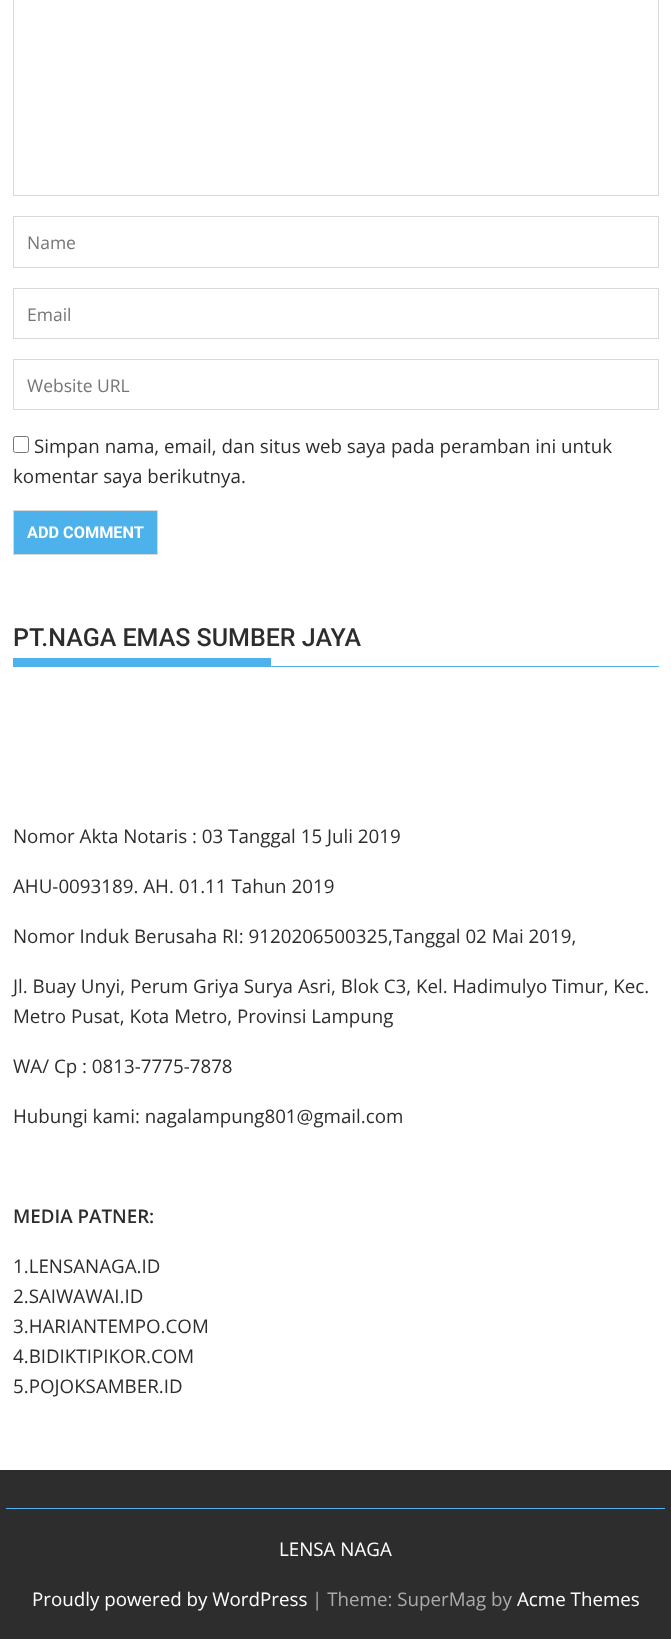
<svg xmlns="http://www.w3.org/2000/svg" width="671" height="1639">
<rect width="100%" height="100%" fill="#fff"/>
<rect x="13.5" y="-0.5" width="645" height="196" fill="none" stroke="#d9d9d9"/>
<rect x="13.5" y="216.5" width="645" height="51" fill="none" stroke="#d9d9d9"/>
<text x="27" y="249" style="font-family:Open Sans;font-size:17.5px;fill:#757575">Name</text>
<rect x="13.5" y="288.5" width="645" height="50" fill="none" stroke="#d9d9d9"/>
<text x="27" y="321" style="font-family:Open Sans;font-size:17.5px;fill:#757575">Email</text>
<rect x="13.5" y="359.5" width="645" height="50" fill="none" stroke="#d9d9d9"/>
<text x="27" y="392" style="font-family:Open Sans;font-size:17.5px;fill:#757575">Website URL</text>
<rect x="13.5" y="436.5" width="15" height="16" rx="2" fill="none" stroke="#767676"/>
<text x="34" y="453" style="font-family:Open Sans;font-size:18.75px;fill:#2d2d2d">Simpan nama, email, dan situs web saya pada peramban ini untuk</text>
<text x="13" y="483" style="font-family:Open Sans;font-size:18.75px;fill:#2d2d2d">komentar saya berikutnya.</text>
<rect x="13.5" y="510.5" width="144" height="44" fill="#4db2ec" stroke="#d9d9d9"/>
<text x="27" y="538" style="font-family:Roboto;font-size:16.25px;font-weight:bold;fill:#fff">ADD COMMENT</text>
<rect x="13" y="666" width="646" height="1" fill="#4db2ec"/>
<text x="13" y="646" style="font-family:Roboto;font-size:25px;font-weight:500;fill:#2d2d2d">PT.NAGA EMAS SUMBER JAYA</text>
<rect x="13" y="658" width="258" height="8" fill="#4db2ec"/>
<text x="13" y="843" style="font-family:Open Sans;font-size:18.75px;fill:#2d2d2d">Nomor Akta Notaris : 03 Tanggal 15 Juli 2019</text>
<text x="13" y="893" style="font-family:Open Sans;font-size:18.75px;fill:#2d2d2d">AHU-0093189. AH. 01.11 Tahun 2019</text>
<text x="13" y="943" style="font-family:Open Sans;font-size:18.75px;fill:#2d2d2d">Nomor Induk Berusaha RI: 9120206500325,Tanggal 02 Mai 2019,</text>
<text x="13" y="993" style="font-family:Open Sans;font-size:18.75px;fill:#2d2d2d">Jl. Buay Unyi, Perum Griya Surya Asri, Blok C3, Kel. Hadimulyo Timur, Kec.</text>
<text x="13" y="1023" style="font-family:Open Sans;font-size:18.75px;fill:#2d2d2d">Metro Pusat, Kota Metro, Provinsi Lampung</text>
<text x="13" y="1073" style="font-family:Open Sans;font-size:18.75px;fill:#2d2d2d">WA/ Cp : 0813-7775-7878</text>
<text x="13" y="1123" style="font-family:Open Sans;font-size:18.75px;fill:#2d2d2d">Hubungi kami: nagalampung801@gmail.com</text>
<text x="13" y="1223" style="font-family:Open Sans;font-size:18.75px;font-weight:600;fill:#2d2d2d">MEDIA PATNER:</text>
<text x="13" y="1273" style="font-family:Open Sans;font-size:18.75px;fill:#2d2d2d">1.LENSANAGA.ID</text>
<text x="13" y="1303" style="font-family:Open Sans;font-size:18.75px;fill:#2d2d2d">2.SAIWAWAI.ID</text>
<text x="13" y="1333" style="font-family:Open Sans;font-size:18.75px;fill:#2d2d2d">3.HARIANTEMPO.COM</text>
<text x="13" y="1363" style="font-family:Open Sans;font-size:18.75px;fill:#2d2d2d">4.BIDIKTIPIKOR.COM</text>
<text x="13" y="1393" style="font-family:Open Sans;font-size:18.75px;fill:#2d2d2d">5.POJOKSAMBER.ID</text>
<rect y="1470" width="671" height="169" fill="#2d2d2d"/>
<rect x="6" y="1508" width="659" height="1" fill="#4db2ec"/>
<text x="279" y="1556" style="font-family:Open Sans;font-size:18.75px;fill:#fff">LENSA NAGA</text>
<text x="32" y="1606" style="font-family:Open Sans;font-size:18.75px;fill:#fff">Proudly powered by WordPress</text>
<text x="312" y="1606" style="font-family:Open Sans;font-size:18.75px;fill:#ababab">| Theme: SuperMag by</text>
<text x="517" y="1606" style="font-family:Open Sans;font-size:18.75px;fill:#fff">Acme Themes</text>
</svg>
